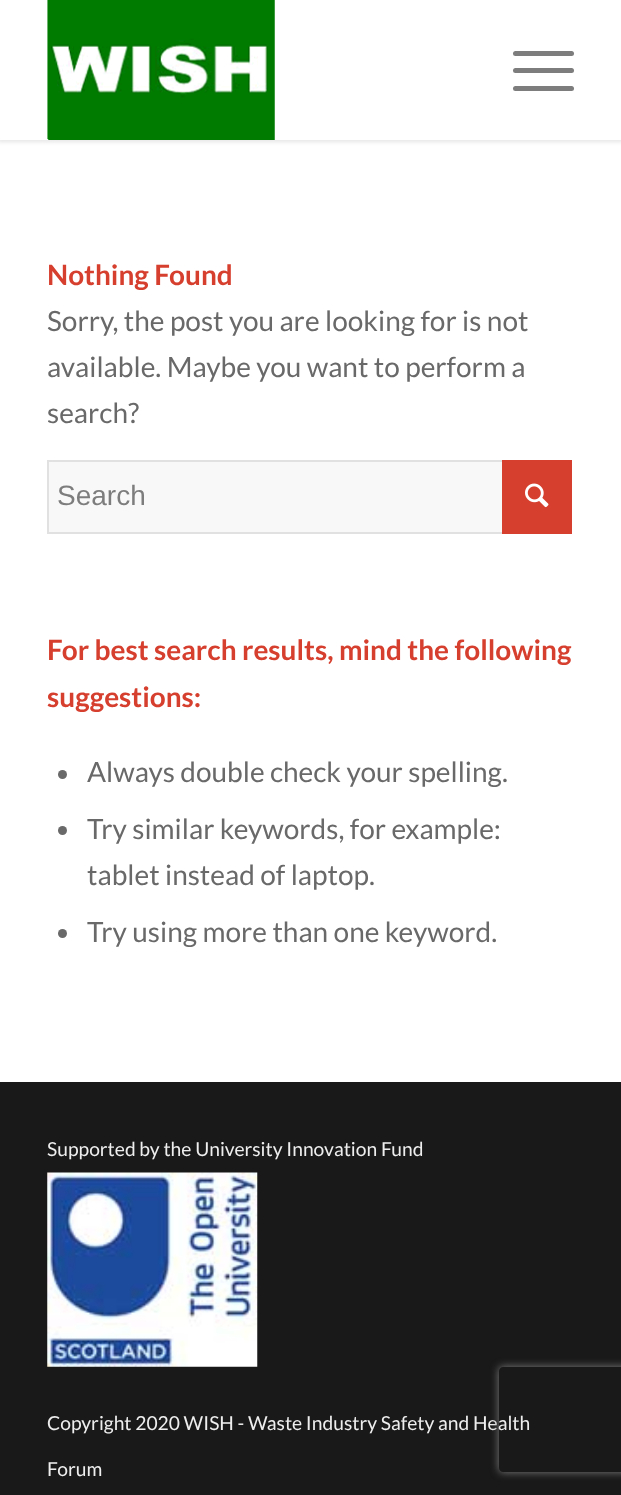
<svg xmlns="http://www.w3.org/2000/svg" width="621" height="1495">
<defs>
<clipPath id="clip1"><path d="M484 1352h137v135h-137zm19 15h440c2 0 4 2 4 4v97c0 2-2 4-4 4h-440c-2 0-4-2-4-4v-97c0-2 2-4 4-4z" clip-rule="evenodd"/></clipPath>
</defs>
<rect width="100%" height="100%" fill="#fff"/>
<rect x="-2" y="-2" width="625" height="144" fill="#0000001a" filter="blur(2px)"/>
<rect width="621" height="140" fill="#fff"/>
<image x="47" y="0" width="228" height="140" href="media/1.png"/>
<rect x="513" y="68" width="61" height="5" rx="2.5" fill="#7d7d7d"/>
<rect x="513" y="51" width="61" height="5" rx="2.5" fill="#7d7d7d"/>
<rect x="513" y="86" width="61" height="5" rx="2.5" fill="#7d7d7d"/>
<text x="47" y="285" style="font-family:Lato;font-size:28px;font-weight:bold;fill:#d63e2d">Nothing Found</text>
<text x="47" y="331" style="font-family:Lato;font-size:28px;fill:#696969">Sorry, the post you are looking for is not</text>
<text x="47" y="377" style="font-family:Lato;font-size:28px;fill:#696969">available. Maybe you want to perform a</text>
<text x="47" y="423" style="font-family:Lato;font-size:28px;fill:#696969">search?</text>
<rect x="49" y="462" width="453" height="70" fill="#f8f8f8"/>
<rect x="48" y="461" width="523" height="72" fill="none" stroke="#e1e1e1" stroke-width="2"/>
<text x="57" y="505" style="font-family:Liberation Sans;font-size:28px;fill:#7d7d7d">Search</text>
<rect x="502" y="460" width="70" height="74" fill="#d63e2d"/>
<image x="525" y="483" width="24" height="25" href="media/2.png"/>
<text x="47" y="660" style="font-family:Lato;font-size:28px;font-weight:bold;fill:#d63e2d">For best search results, mind the following</text>
<text x="47" y="707" style="font-family:Lato;font-size:28px;font-weight:bold;fill:#d63e2d">suggestions:</text>
<circle cx="62.5" cy="774.5" r="4.5" fill="#696969"/>
<text x="87" y="782" style="font-family:Lato;font-size:28px;fill:#696969">Always double check your spelling.</text>
<circle cx="62.5" cy="830.5" r="4.5" fill="#696969"/>
<text x="87" y="839" style="font-family:Lato;font-size:28px;fill:#696969">Try similar keywords, for example:</text>
<text x="87" y="885" style="font-family:Lato;font-size:28px;fill:#696969">tablet instead of laptop.</text>
<circle cx="62.5" cy="933.5" r="4.5" fill="#696969"/>
<text x="87" y="942" style="font-family:Lato;font-size:28px;fill:#696969">Try using more than one keyword.</text>
<rect y="1082" width="621" height="413" fill="#191919"/>
<text x="47" y="1156" style="font-family:Lato;font-size:19.25px;fill:#eee">Supported by the University Innovation Fund</text>
<image x="47" y="1172" width="211" height="195" href="media/3.png"/>
<text x="47" y="1430" style="font-family:Lato;font-size:19.25px;fill:#eee">Copyright 2020 WISH - Waste Industry Safety and Health</text>
<text x="47" y="1476" style="font-family:Lato;font-size:19.25px;fill:#eee">Forum</text>
<g clip-path="url(#clip1)">
<rect x="499" y="1367" width="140" height="105" rx="4" fill="#808080" filter="blur(4.5px)"/>
</g>
</svg>
